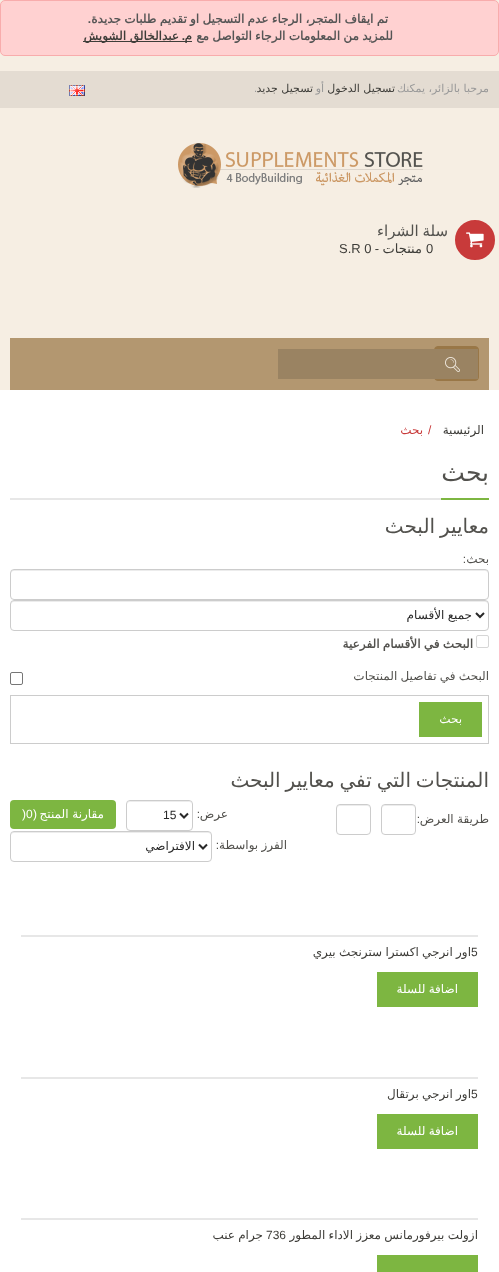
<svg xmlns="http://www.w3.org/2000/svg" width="499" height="1272">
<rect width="100%" height="100%" fill="#fff"/>
<rect width="499" height="390" fill="#f6eee3"/>
<rect x="0.5" y="0.5" width="498" height="55" rx="4.5" fill="#ffd1d1" stroke="#f8acac"/>
<text x="388" y="23" word-spacing="-0.5" style="font-family:DejaVu Sans;font-size:12px;font-weight:bold;direction:rtl;fill:#555">تم ايقاف المتجر، الرجاء عدم التسجيل او تقديم طلبات جديدة</text>
<text x="91" y="23" style="font-family:Liberation Sans;font-size:12px;font-weight:bold;direction:rtl;fill:#555">.</text>
<text x="393" y="40" word-spacing="-0.5" style="font-family:DejaVu Sans;font-size:12px;font-weight:bold;direction:rtl;fill:#555">للمزيد من المعلومات الرجاء التواصل مع</text>
<rect x="83" y="41" width="109" height="1" fill="#3e3d39"/>
<text x="192" y="40" style="font-family:DejaVu Sans;font-size:12px;font-weight:bold;direction:rtl;fill:#3e3d39">م</text>
<text x="185" y="40" style="font-family:Liberation Sans;font-size:12px;font-weight:bold;direction:rtl;fill:#3e3d39">.</text>
<text x="179" y="40" style="font-family:DejaVu Sans;font-size:12px;font-weight:bold;direction:rtl;fill:#3e3d39">عبدالخالق الشويش</text>
<rect y="71" width="499" height="37" fill="#e4dcd2"/>
<text x="489" y="92" style="font-family:DejaVu Sans;font-size:11px;direction:rtl;fill:#999">مرحبا بالزائر، يمكنك</text>
<text x="395" y="92" style="font-family:DejaVu Sans;font-size:11px;direction:rtl;fill:#3e3d39">تسجيل الدخول</text>
<text x="324" y="92" style="font-family:DejaVu Sans;font-size:11px;direction:rtl;fill:#999">أو</text>
<text x="313" y="92" style="font-family:DejaVu Sans;font-size:11px;direction:rtl;fill:#3e3d39">تسجيل جديد</text>
<text x="254" y="92" style="font-family:Liberation Sans;font-size:11px;fill:#999">.</text>
<image x="69" y="85" width="16" height="11" href="media/1.png"/>
<image x="178" y="143" width="245" height="45" href="media/2.png"/>
<circle cx="475" cy="240" r="18.5" fill="none" stroke="#c83a3a" stroke-width="3"/>
<circle cx="475" cy="240" r="19" fill="#c83a3a"/>
<image x="466" y="232" width="18" height="16" href="media/3.png"/>
<text x="448" y="236" word-spacing="-1" style="font-family:DejaVu Sans;font-size:15px;direction:rtl;fill:#52514d">سلة الشراء</text>
<text x="426" y="253" style="font-family:Liberation Sans;font-size:13px;fill:#3e3d39">0</text>
<text x="422" y="253" style="font-family:DejaVu Sans;font-size:13px;direction:rtl;fill:#3e3d39">منتجات</text>
<text x="379" y="253" style="font-family:Liberation Sans;font-size:13px;direction:rtl;fill:#3e3d39">-</text>
<text x="339" y="253" style="font-family:Liberation Sans;font-size:13px;fill:#3e3d39">S.R 0</text>
<rect x="10" y="338" width="479" height="52" fill="#b39770"/>
<rect x="434.5" y="346.5" width="44" height="34" rx="3.5" fill="#997747" stroke="#997747"/>
<rect x="278" y="349" width="200" height="30" fill="#9a8362"/>
<image x="445" y="357" width="15" height="15" href="media/4.png"/>
<text x="484" y="434" style="font-family:DejaVu Sans;font-size:12px;direction:rtl;fill:#3e3d39">الرئيسية</text>
<text x="428" y="434" style="font-family:Liberation Sans;font-size:12px;fill:#c83a3a">/</text>
<text x="423" y="434" style="font-family:DejaVu Sans;font-size:12px;direction:rtl;fill:#c83a3a">بحث</text>
<rect x="10" y="498" width="431" height="2" fill="#e7e7e7"/>
<text x="489" y="481" style="font-family:DejaVu Sans;font-size:25px;direction:rtl;fill:#52514d">بحث</text>
<rect x="441" y="498" width="48" height="2" fill="#7db641"/>
<text x="489" y="533" word-spacing="-1.5" style="font-family:DejaVu Sans;font-size:20px;direction:rtl;fill:#52514d">معايير البحث</text>
<text x="489" y="563" style="font-family:DejaVu Sans;font-size:12px;direction:rtl;fill:#52514d">بحث</text>
<text x="466" y="563" style="font-family:Liberation Sans;font-size:12px;direction:rtl;fill:#52514d">:</text>
<path d="M14 571h471c2 0 3 1 3 3v-1c0-2-1-3-3-3h-471c-2 0-3 1-3 3v1c0-2 1-3 3-3z" fill="#ececec"/>
<rect x="10.5" y="569.5" width="478" height="30" rx="3.5" fill="none" stroke="#ccc"/>
<path d="M14 602h471c2 0 3 1 3 3v-1c0-2-1-3-3-3h-471c-2 0-3 1-3 3v1c0-2 1-3 3-3z" fill="#ececec"/>
<rect x="10.5" y="600.5" width="478" height="30" rx="3.5" fill="none" stroke="#ccc"/>
<path d="M476 613l4 4l4-4" fill="none" stroke="#292929" stroke-width="2"/>
<text x="472" y="619" word-spacing="-0.5" style="font-family:DejaVu Sans;font-size:12px;direction:rtl;fill:#292929">جميع الأقسام</text>
<rect x="476.5" y="635.5" width="12" height="12" rx="1.5" fill="none" stroke="#d6d6d6"/>
<text x="473" y="648" word-spacing="-0.5" style="font-family:DejaVu Sans;font-size:12px;font-weight:bold;direction:rtl;fill:#52514d">البحث في الأقسام الفرعية</text>
<text x="489" y="680" word-spacing="-0.5" style="font-family:DejaVu Sans;font-size:12px;direction:rtl;fill:#52514d">البحث في تفاصيل المنتجات</text>
<rect x="10.5" y="672.5" width="12" height="12" rx="1.5" fill="none" stroke="#767676"/>
<rect x="10.5" y="695.5" width="478" height="48" fill="none" stroke="#ccc"/>
<rect x="419" y="702" width="63" height="35" fill="#7db641"/>
<text x="462" y="723" style="font-family:DejaVu Sans;font-size:12px;direction:rtl;fill:#fff">بحث</text>
<text x="489" y="787" word-spacing="-1.5" style="font-family:DejaVu Sans;font-size:20px;direction:rtl;fill:#52514d">المنتجات التي تفي معايير البحث</text>
<text x="489" y="823" word-spacing="-0.5" style="font-family:DejaVu Sans;font-size:12px;direction:rtl;fill:#52514d">طريقة العرض</text>
<text x="420" y="823" style="font-family:Liberation Sans;font-size:12px;direction:rtl;fill:#52514d">:</text>
<path d="M385 806h27c2 0 3 1 3 3c0-5-3.5-4-7.5-4h-18c-4 0-7.5-1-7.5 4c0-2 1-3 3-3z" fill="#ececec"/>
<rect x="381.5" y="804.5" width="34" height="30" rx="3.5" fill="none" stroke="#ccc"/>
<path d="M340 806h27c2 0 3 1 3 3c0-5-3.5-4-7.5-4h-18c-4 0-7.5-1-7.5 4c0-2 1-3 3-3z" fill="#ececec"/>
<rect x="336.5" y="804.5" width="34" height="30" rx="3.5" fill="none" stroke="#ccc"/>
<text x="228" y="818" style="font-family:DejaVu Sans;font-size:12px;direction:rtl;fill:#52514d">عرض</text>
<text x="200" y="818" style="font-family:Liberation Sans;font-size:12px;direction:rtl;fill:#52514d">:</text>
<path d="M130 802h59c2 0 3 1 3 3c0-6-8-4-13-4h-39c-5 0-13-2-13 4c0-2 1-3 3-3z" fill="#ececec"/>
<rect x="126.5" y="800.5" width="66" height="30" rx="3.5" fill="none" stroke="#ccc"/>
<path d="M180 813.5l4 4l4-4" fill="none" stroke="#292929" stroke-width="2"/>
<text x="163" y="819" style="font-family:Liberation Sans;font-size:12px;fill:#292929">15</text>
<rect x="10" y="800" width="106" height="29" rx="4" fill="#7db641"/>
<text x="104" y="818" style="font-family:DejaVu Sans;font-size:12px;direction:rtl;fill:#fff">مقارنة المنتج</text>
<text x="37" y="818" style="font-family:Liberation Sans;font-size:12px;direction:rtl;fill:#fff">(</text>
<text x="22" y="818" style="font-family:Liberation Sans;font-size:12px;fill:#fff">)0</text>
<text x="287" y="849" word-spacing="-0.5" style="font-family:DejaVu Sans;font-size:12px;direction:rtl;fill:#52514d">الفرز بواسطة</text>
<text x="219" y="849" style="font-family:Liberation Sans;font-size:12px;direction:rtl;fill:#52514d">:</text>
<path d="M14 833h194c2 0 3 1 3 3c0-2-1-4-3-4h-194c-2 0-3 2-3 4c0-2 1-3 3-3z" fill="#ececec"/>
<rect x="10.5" y="831.5" width="201" height="30" rx="3.5" fill="none" stroke="#ccc"/>
<path d="M199 844.5l4 4l4-4" fill="none" stroke="#292929" stroke-width="2"/>
<text x="195" y="850" style="font-family:DejaVu Sans;font-size:12px;direction:rtl;fill:#292929">الافتراضي</text>
<rect x="21" y="935" width="457" height="2" fill="#e7e7e7"/>
<text x="471" y="956" word-spacing="-0.5" style="font-family:DejaVu Sans;font-size:12px;direction:rtl;fill:#3e3d39">اور انرجي اكسترا سترنجث بيري</text>
<text x="471" y="956" style="font-family:Liberation Sans;font-size:12px;fill:#3e3d39">5</text>
<rect x="377" y="972" width="101" height="35" fill="#7db641"/>
<text x="458" y="993" word-spacing="-0.5" style="font-family:DejaVu Sans;font-size:12px;direction:rtl;fill:#fff">اضافة للسلة</text>
<rect x="21" y="1077" width="457" height="2" fill="#e7e7e7"/>
<text x="471" y="1098" word-spacing="-0.5" style="font-family:DejaVu Sans;font-size:12px;direction:rtl;fill:#3e3d39">اور انرجي برتقال</text>
<text x="471" y="1098" style="font-family:Liberation Sans;font-size:12px;fill:#3e3d39">5</text>
<rect x="377" y="1114" width="101" height="35" fill="#7db641"/>
<text x="458" y="1135" word-spacing="-0.5" style="font-family:DejaVu Sans;font-size:12px;direction:rtl;fill:#fff">اضافة للسلة</text>
<rect x="21" y="1218" width="457" height="2" fill="#e7e7e7"/>
<text x="478" y="1239" word-spacing="-0.5" style="font-family:DejaVu Sans;font-size:12px;direction:rtl;fill:#3e3d39">ازولت بيرفورمانس</text>
<text x="381" y="1239" word-spacing="-0.5" style="font-family:DejaVu Sans;font-size:12px;direction:rtl;fill:#3e3d39">معزز الاداء المطور</text>
<text x="266" y="1239" style="font-family:Liberation Sans;font-size:12px;fill:#3e3d39">736</text>
<text x="263" y="1239" style="font-family:DejaVu Sans;font-size:12px;direction:rtl;fill:#3e3d39">جرام</text>
<text x="235" y="1239" style="font-family:DejaVu Sans;font-size:12px;direction:rtl;fill:#3e3d39">عنب</text>
<rect x="377" y="1255" width="101" height="17" fill="#7db641"/>
</svg>
